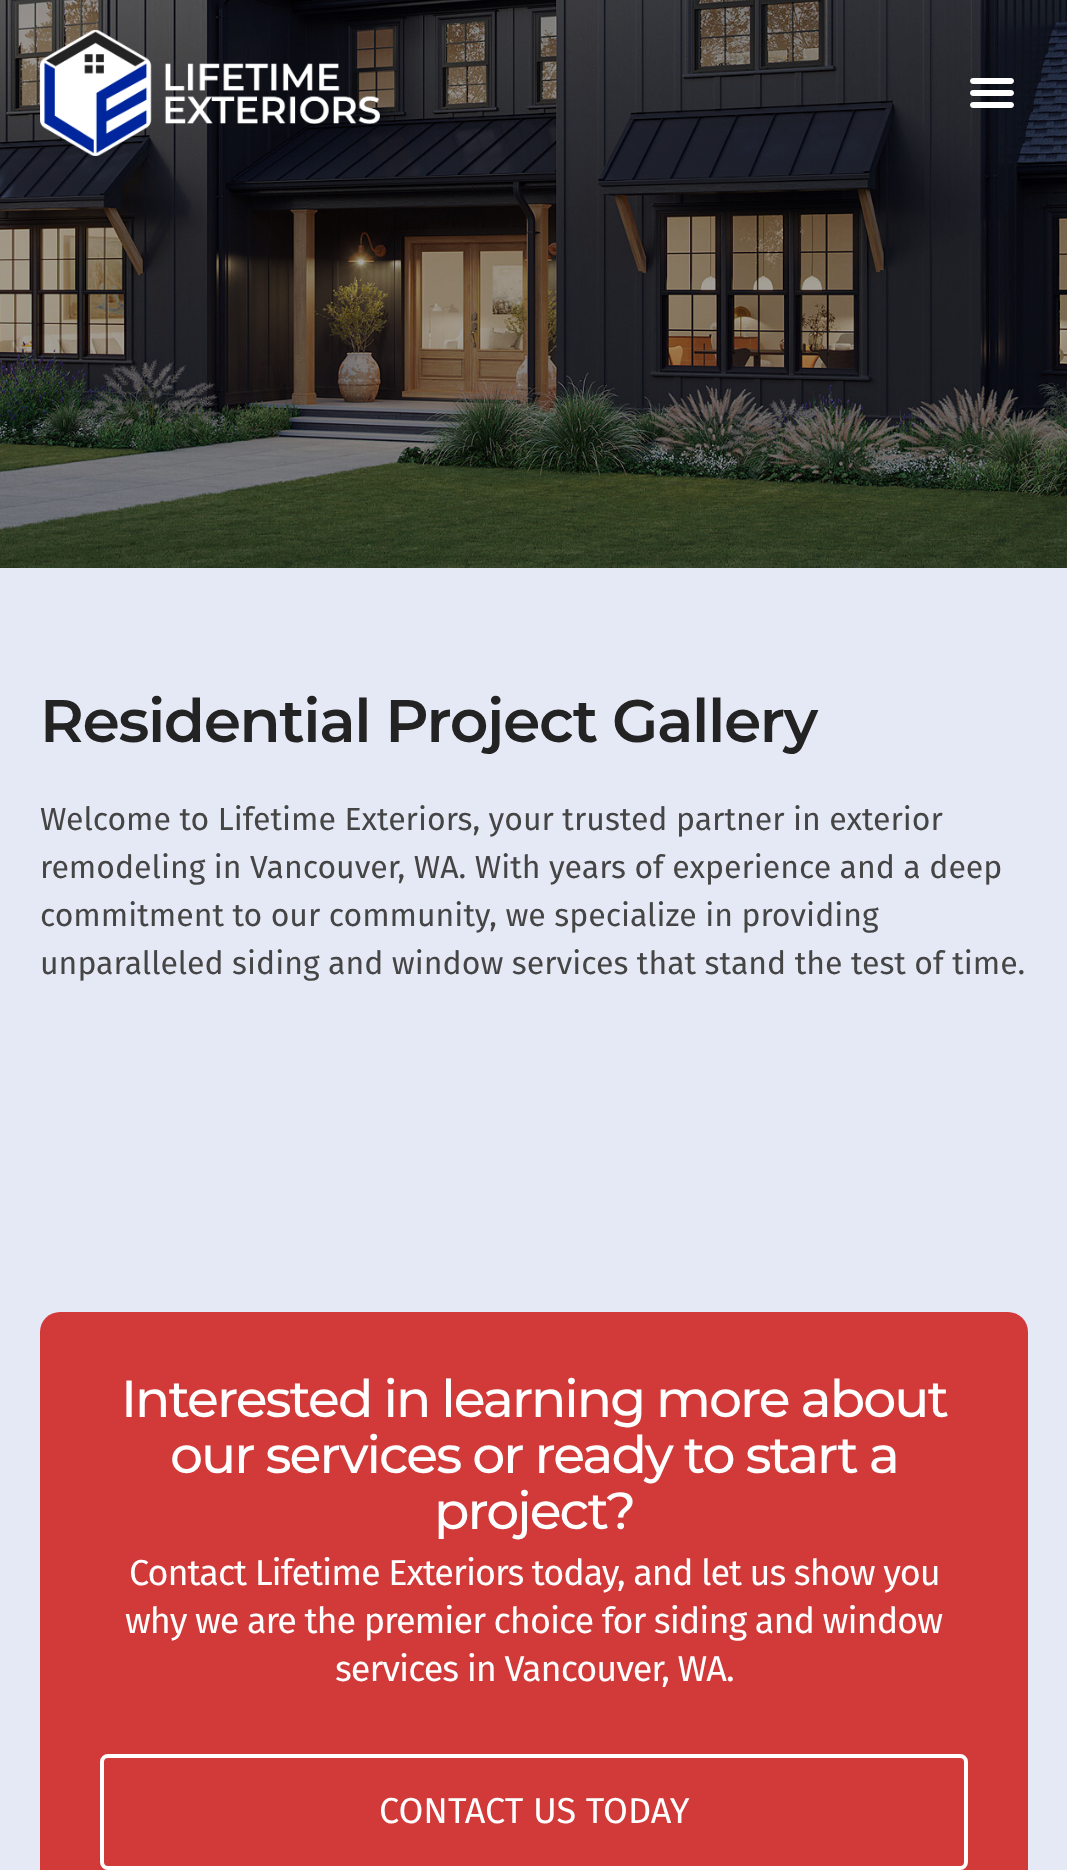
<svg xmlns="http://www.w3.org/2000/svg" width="1067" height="1870">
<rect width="100%" height="100%" fill="#fff"/>
<image x="0" y="0" width="1067" height="568" href="media/3.png"/>
<image x="40" y="30" width="340" height="126" href="media/1.png"/>
<image x="970" y="78" width="44" height="30" href="media/2.png"/>
<rect y="568" width="1067" height="1302" fill="#e5e9f5"/>
<text x="40" y="742" style="font-family:Montserrat;font-size:60px;font-weight:600;letter-spacing:-1.4px;fill:#232323">Residential Project Gallery</text>
<text x="40" y="830" style="font-family:Fira Sans;font-size:32px;fill:#454545">Welcome to Lifetime Exteriors, your trusted partner in exterior</text>
<text x="40" y="878" style="font-family:Fira Sans;font-size:32px;fill:#454545">remodeling in Vancouver, WA. With years of experience and a deep</text>
<text x="40" y="926" style="font-family:Fira Sans;font-size:32px;fill:#454545">commitment to our community, we specialize in providing</text>
<text x="40" y="974" style="font-family:Fira Sans;font-size:32px;fill:#454545">unparalleled siding and window services that stand the test of time.</text>
<rect x="40" y="1312" width="988" height="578" rx="20" fill="#d23939"/>
<text x="121" y="1417" style="font-family:Montserrat;font-size:52px;font-weight:500;letter-spacing:-2px;fill:#fff">Interested in learning more about</text>
<text x="170" y="1473" style="font-family:Montserrat;font-size:52px;font-weight:500;letter-spacing:-2px;fill:#fff">our services or ready to start a</text>
<text x="434" y="1529" style="font-family:Montserrat;font-size:52px;font-weight:500;letter-spacing:-2px;fill:#fff">project?</text>
<text x="129" y="1585" style="font-family:Fira Sans;font-size:36px;letter-spacing:-1px;fill:#fff">Contact Lifetime Exteriors today, and let us show you</text>
<text x="125" y="1633" style="font-family:Fira Sans;font-size:36px;letter-spacing:-1px;fill:#fff">why we are the premier choice for siding and window</text>
<text x="335" y="1681" style="font-family:Fira Sans;font-size:36px;letter-spacing:-1px;fill:#fff">services in Vancouver, WA.</text>
<rect x="102" y="1756" width="864" height="112" rx="6" fill="none" stroke="#fff" stroke-width="4"/>
<text x="379" y="1823" style="font-family:Fira Sans;font-size:36px;fill:#fff">CONTACT US TODAY</text>
</svg>
